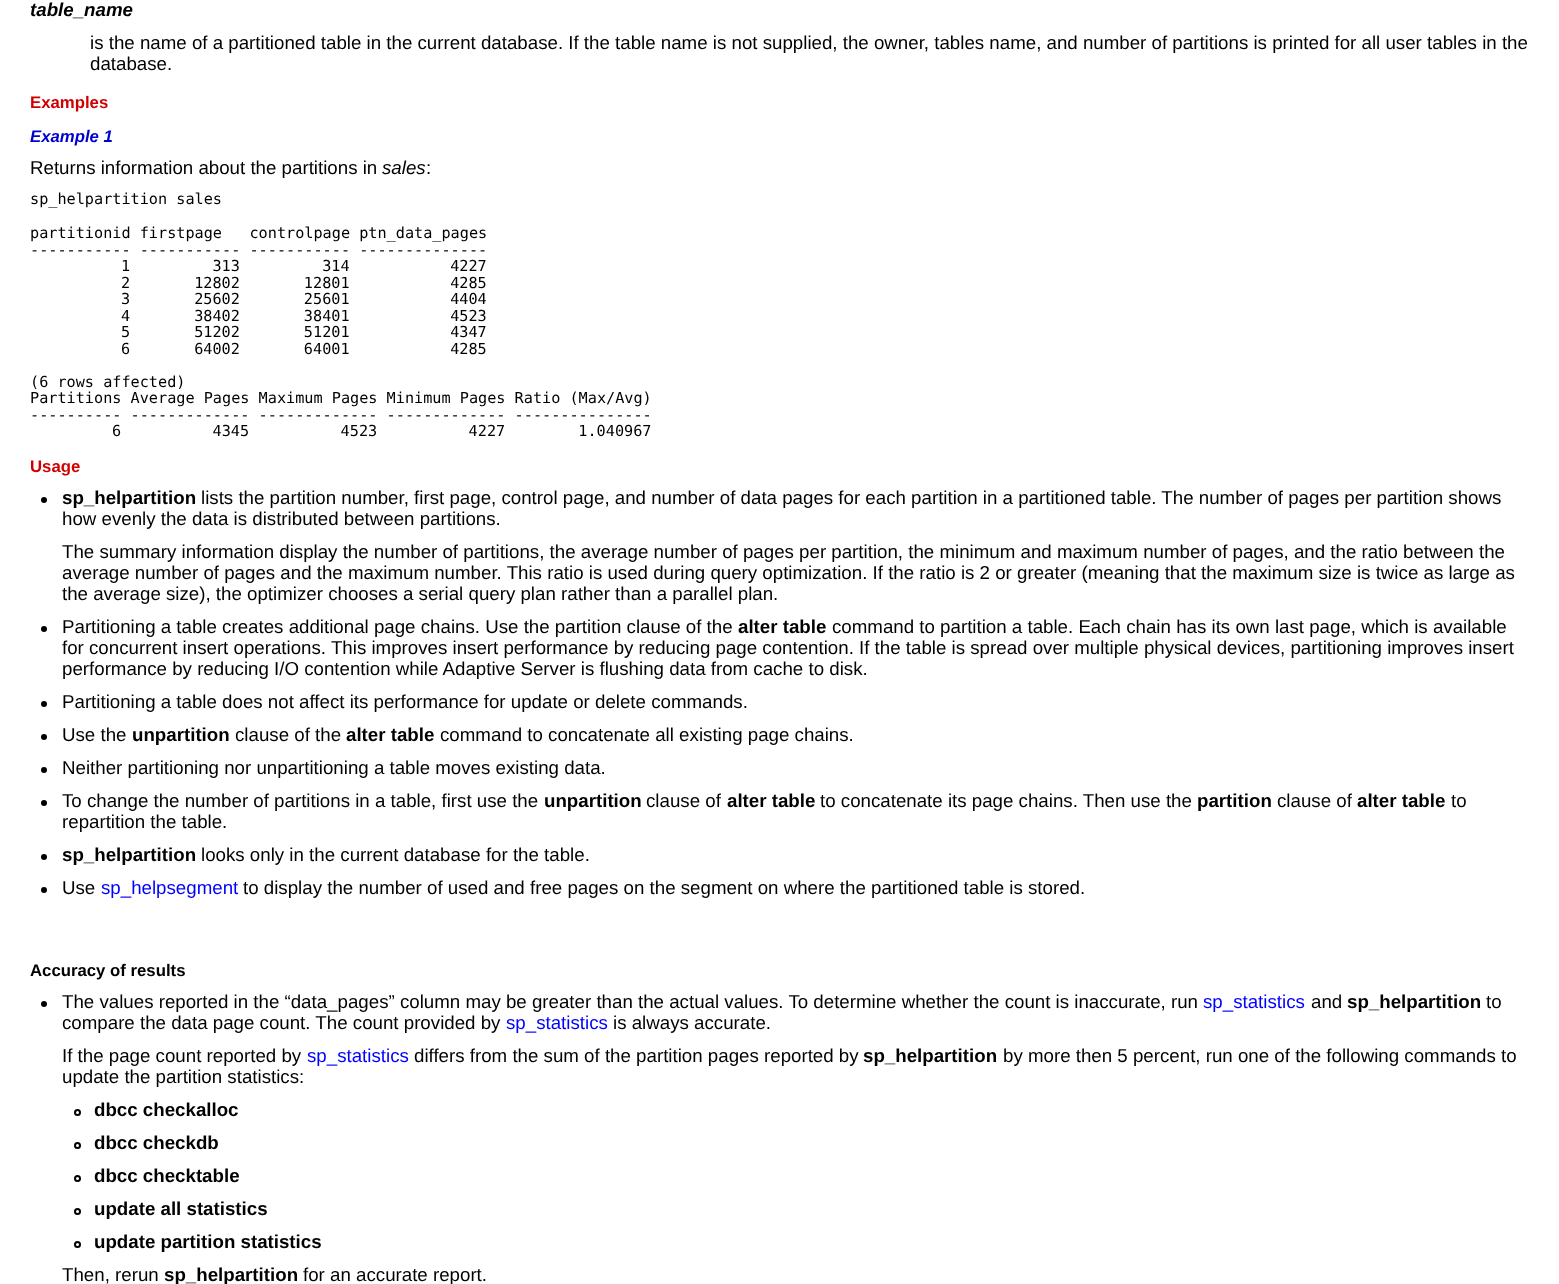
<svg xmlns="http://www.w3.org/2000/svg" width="1559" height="1284">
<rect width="100%" height="100%" fill="#fff"/>
<text x="30" y="16" style="font-family:Liberation Sans;font-size:18.72px;font-weight:bold;font-style:italic;fill:#000">table_name</text>
<text x="90" y="49" style="font-family:Liberation Sans;font-size:18.72px;fill:#000">is the name of a partitioned table in the current database. If the table name is not supplied, the owner, tables name, and number of partitions is printed for all user tables in the</text>
<text x="90" y="70" style="font-family:Liberation Sans;font-size:18.72px;fill:#000">database.</text>
<text x="30" y="108" style="font-family:Liberation Sans;font-size:16.75px;font-weight:bold;fill:#d00000">Examples</text>
<text x="30" y="142" style="font-family:Liberation Sans;font-size:16.75px;font-weight:bold;font-style:italic;fill:#0000d0">Example 1</text>
<text x="30" y="174" style="font-family:Liberation Sans;font-size:18.72px;fill:#000">Returns information about the partitions in</text>
<text x="382" y="174" style="font-family:Liberation Sans;font-size:18.72px;font-style:italic;fill:#000">sales</text>
<text x="426" y="174" style="font-family:Liberation Sans;font-size:18.72px;fill:#000">:</text>
<text x="30" y="204" style="font-family:DejaVu Sans Mono;font-size:15.2px;fill:#000">sp_helpartition sales</text>
<text x="30" y="238" style="font-family:DejaVu Sans Mono;font-size:15.2px;fill:#000" xml:space="preserve">partitionid firstpage   controlpage ptn_data_pages</text>
<text x="30" y="255" style="font-family:DejaVu Sans Mono;font-size:15.2px;fill:#000">----------- ----------- ----------- --------------</text>
<text x="121" y="271" style="font-family:DejaVu Sans Mono;font-size:15.2px;fill:#000" xml:space="preserve">1         313         314           4227</text>
<text x="121" y="288" style="font-family:DejaVu Sans Mono;font-size:15.2px;fill:#000" xml:space="preserve">2       12802       12801           4285</text>
<text x="121" y="304" style="font-family:DejaVu Sans Mono;font-size:15.2px;fill:#000" xml:space="preserve">3       25602       25601           4404</text>
<text x="121" y="321" style="font-family:DejaVu Sans Mono;font-size:15.2px;fill:#000" xml:space="preserve">4       38402       38401           4523</text>
<text x="121" y="337" style="font-family:DejaVu Sans Mono;font-size:15.2px;fill:#000" xml:space="preserve">5       51202       51201           4347</text>
<text x="121" y="354" style="font-family:DejaVu Sans Mono;font-size:15.2px;fill:#000" xml:space="preserve">6       64002       64001           4285</text>
<text x="30" y="387" style="font-family:DejaVu Sans Mono;font-size:15.2px;fill:#000">(6 rows affected)</text>
<text x="30" y="403" style="font-family:DejaVu Sans Mono;font-size:15.2px;fill:#000">Partitions Average Pages Maximum Pages Minimum Pages Ratio (Max/Avg)</text>
<text x="30" y="420" style="font-family:DejaVu Sans Mono;font-size:15.2px;fill:#000">---------- ------------- ------------- ------------- ---------------</text>
<text x="112" y="436" style="font-family:DejaVu Sans Mono;font-size:15.2px;fill:#000" xml:space="preserve">6          4345          4523          4227        1.040967</text>
<text x="30" y="472" style="font-family:Liberation Sans;font-size:16.75px;font-weight:bold;fill:#d00000">Usage</text>
<circle cx="44" cy="500" r="3" fill="#000"/>
<text x="62" y="504" style="font-family:Liberation Sans;font-size:18.72px;font-weight:bold;fill:#000">sp_helpartition</text>
<text x="201" y="504" style="font-family:Liberation Sans;font-size:18.72px;fill:#000">lists the partition number, first page, control page, and number of data pages for each partition in a partitioned table. The number of pages per partition shows</text>
<text x="62" y="525" style="font-family:Liberation Sans;font-size:18.72px;fill:#000">how evenly the data is distributed between partitions.</text>
<text x="62" y="558" style="font-family:Liberation Sans;font-size:18.72px;fill:#000">The summary information display the number of partitions, the average number of pages per partition, the minimum and maximum number of pages, and the ratio between the</text>
<text x="62" y="579" style="font-family:Liberation Sans;font-size:18.72px;fill:#000">average number of pages and the maximum number. This ratio is used during query optimization. If the ratio is 2 or greater (meaning that the maximum size is twice as large as</text>
<text x="62" y="600" style="font-family:Liberation Sans;font-size:18.72px;fill:#000">the average size), the optimizer chooses a serial query plan rather than a parallel plan.</text>
<circle cx="44" cy="629" r="3" fill="#000"/>
<text x="62" y="633" style="font-family:Liberation Sans;font-size:18.72px;fill:#000">Partitioning a table creates additional page chains. Use the partition clause of the</text>
<text x="738" y="633" style="font-family:Liberation Sans;font-size:18.72px;font-weight:bold;fill:#000">alter table</text>
<text x="832" y="633" style="font-family:Liberation Sans;font-size:18.72px;fill:#000">command to partition a table. Each chain has its own last page, which is available</text>
<text x="62" y="654" style="font-family:Liberation Sans;font-size:18.72px;fill:#000">for concurrent insert operations. This improves insert performance by reducing page contention. If the table is spread over multiple physical devices, partitioning improves insert</text>
<text x="62" y="675" style="font-family:Liberation Sans;font-size:18.72px;fill:#000">performance by reducing I/O contention while Adaptive Server is flushing data from cache to disk.</text>
<circle cx="44" cy="704" r="3" fill="#000"/>
<text x="62" y="708" style="font-family:Liberation Sans;font-size:18.72px;fill:#000">Partitioning a table does not affect its performance for update or delete commands.</text>
<circle cx="44" cy="737" r="3" fill="#000"/>
<text x="62" y="741" style="font-family:Liberation Sans;font-size:18.72px;fill:#000">Use the</text>
<text x="132" y="741" style="font-family:Liberation Sans;font-size:18.72px;font-weight:bold;fill:#000">unpartition</text>
<text x="235" y="741" style="font-family:Liberation Sans;font-size:18.72px;fill:#000">clause of the</text>
<text x="346" y="741" style="font-family:Liberation Sans;font-size:18.72px;font-weight:bold;fill:#000">alter table</text>
<text x="440" y="741" style="font-family:Liberation Sans;font-size:18.72px;fill:#000">command to concatenate all existing page chains.</text>
<circle cx="44" cy="770" r="3" fill="#000"/>
<text x="62" y="774" style="font-family:Liberation Sans;font-size:18.72px;fill:#000">Neither partitioning nor unpartitioning a table moves existing data.</text>
<circle cx="44" cy="803" r="3" fill="#000"/>
<text x="62" y="807" style="font-family:Liberation Sans;font-size:18.72px;fill:#000">To change the number of partitions in a table, first use the</text>
<text x="544" y="807" style="font-family:Liberation Sans;font-size:18.72px;font-weight:bold;fill:#000">unpartition</text>
<text x="646" y="807" style="font-family:Liberation Sans;font-size:18.72px;fill:#000">clause of</text>
<text x="727" y="807" style="font-family:Liberation Sans;font-size:18.72px;font-weight:bold;fill:#000">alter table</text>
<text x="820" y="807" style="font-family:Liberation Sans;font-size:18.72px;fill:#000">to concatenate its page chains. Then use the</text>
<text x="1197" y="807" style="font-family:Liberation Sans;font-size:18.72px;font-weight:bold;fill:#000">partition</text>
<text x="1277" y="807" style="font-family:Liberation Sans;font-size:18.72px;fill:#000">clause of</text>
<text x="1357" y="807" style="font-family:Liberation Sans;font-size:18.72px;font-weight:bold;fill:#000">alter table</text>
<text x="1451" y="807" style="font-family:Liberation Sans;font-size:18.72px;fill:#000">to</text>
<text x="62" y="828" style="font-family:Liberation Sans;font-size:18.72px;fill:#000">repartition the table.</text>
<circle cx="44" cy="857" r="3" fill="#000"/>
<text x="62" y="861" style="font-family:Liberation Sans;font-size:18.72px;font-weight:bold;fill:#000">sp_helpartition</text>
<text x="201" y="861" style="font-family:Liberation Sans;font-size:18.72px;fill:#000">looks only in the current database for the table.</text>
<circle cx="44" cy="890" r="3" fill="#000"/>
<text x="62" y="894" style="font-family:Liberation Sans;font-size:18.72px;fill:#000">Use</text>
<text x="101" y="894" style="font-family:Liberation Sans;font-size:18.72px;fill:#00f">sp_helpsegment</text>
<text x="243" y="894" style="font-family:Liberation Sans;font-size:18.72px;fill:#000">to display the number of used and free pages on the segment on where the partitioned table is stored.</text>
<text x="30" y="976" style="font-family:Liberation Sans;font-size:16.75px;font-weight:bold;fill:#000">Accuracy of results</text>
<circle cx="44" cy="1004" r="3" fill="#000"/>
<text x="62" y="1008" style="font-family:Liberation Sans;font-size:18.72px;fill:#000">The values reported in the “data_pages” column may be greater than the actual values. To determine whether the count is inaccurate, run</text>
<text x="1203" y="1008" style="font-family:Liberation Sans;font-size:18.72px;fill:#00f">sp_statistics</text>
<text x="1311" y="1008" style="font-family:Liberation Sans;font-size:18.72px;fill:#000">and</text>
<text x="1347" y="1008" style="font-family:Liberation Sans;font-size:18.72px;font-weight:bold;fill:#000">sp_helpartition</text>
<text x="1486" y="1008" style="font-family:Liberation Sans;font-size:18.72px;fill:#000">to</text>
<text x="62" y="1029" style="font-family:Liberation Sans;font-size:18.72px;fill:#000">compare the data page count. The count provided by</text>
<text x="506" y="1029" style="font-family:Liberation Sans;font-size:18.72px;fill:#00f">sp_statistics</text>
<text x="613" y="1029" style="font-family:Liberation Sans;font-size:18.72px;fill:#000">is always accurate.</text>
<text x="62" y="1062" style="font-family:Liberation Sans;font-size:18.72px;fill:#000">If the page count reported by</text>
<text x="307" y="1062" style="font-family:Liberation Sans;font-size:18.72px;fill:#00f">sp_statistics</text>
<text x="414" y="1062" style="font-family:Liberation Sans;font-size:18.72px;fill:#000">differs from the sum of the partition pages reported by</text>
<text x="863" y="1062" style="font-family:Liberation Sans;font-size:18.72px;font-weight:bold;fill:#000">sp_helpartition</text>
<text x="1003" y="1062" style="font-family:Liberation Sans;font-size:18.72px;fill:#000">by more then 5 percent, run one of the following commands to</text>
<text x="62" y="1083" style="font-family:Liberation Sans;font-size:18.72px;fill:#000">update the partition statistics:</text>
<circle cx="77.5" cy="1112.5" r="2.5" fill="none" stroke="#000" stroke-width="2"/>
<text x="94" y="1116" style="font-family:Liberation Sans;font-size:18.72px;font-weight:bold;fill:#000">dbcc checkalloc</text>
<circle cx="77.5" cy="1145.5" r="2.5" fill="none" stroke="#000" stroke-width="2"/>
<text x="94" y="1149" style="font-family:Liberation Sans;font-size:18.72px;font-weight:bold;fill:#000">dbcc checkdb</text>
<circle cx="77.5" cy="1178.5" r="2.5" fill="none" stroke="#000" stroke-width="2"/>
<text x="94" y="1182" style="font-family:Liberation Sans;font-size:18.72px;font-weight:bold;fill:#000">dbcc checktable</text>
<circle cx="77.5" cy="1211.5" r="2.5" fill="none" stroke="#000" stroke-width="2"/>
<text x="94" y="1215" style="font-family:Liberation Sans;font-size:18.72px;font-weight:bold;fill:#000">update all statistics</text>
<circle cx="77.5" cy="1244.5" r="2.5" fill="none" stroke="#000" stroke-width="2"/>
<text x="94" y="1248" style="font-family:Liberation Sans;font-size:18.72px;font-weight:bold;fill:#000">update partition statistics</text>
<text x="62" y="1281" style="font-family:Liberation Sans;font-size:18.72px;fill:#000">Then, rerun</text>
<text x="164" y="1281" style="font-family:Liberation Sans;font-size:18.72px;font-weight:bold;fill:#000">sp_helpartition</text>
<text x="303" y="1281" style="font-family:Liberation Sans;font-size:18.72px;fill:#000">for an accurate report.</text>
</svg>
